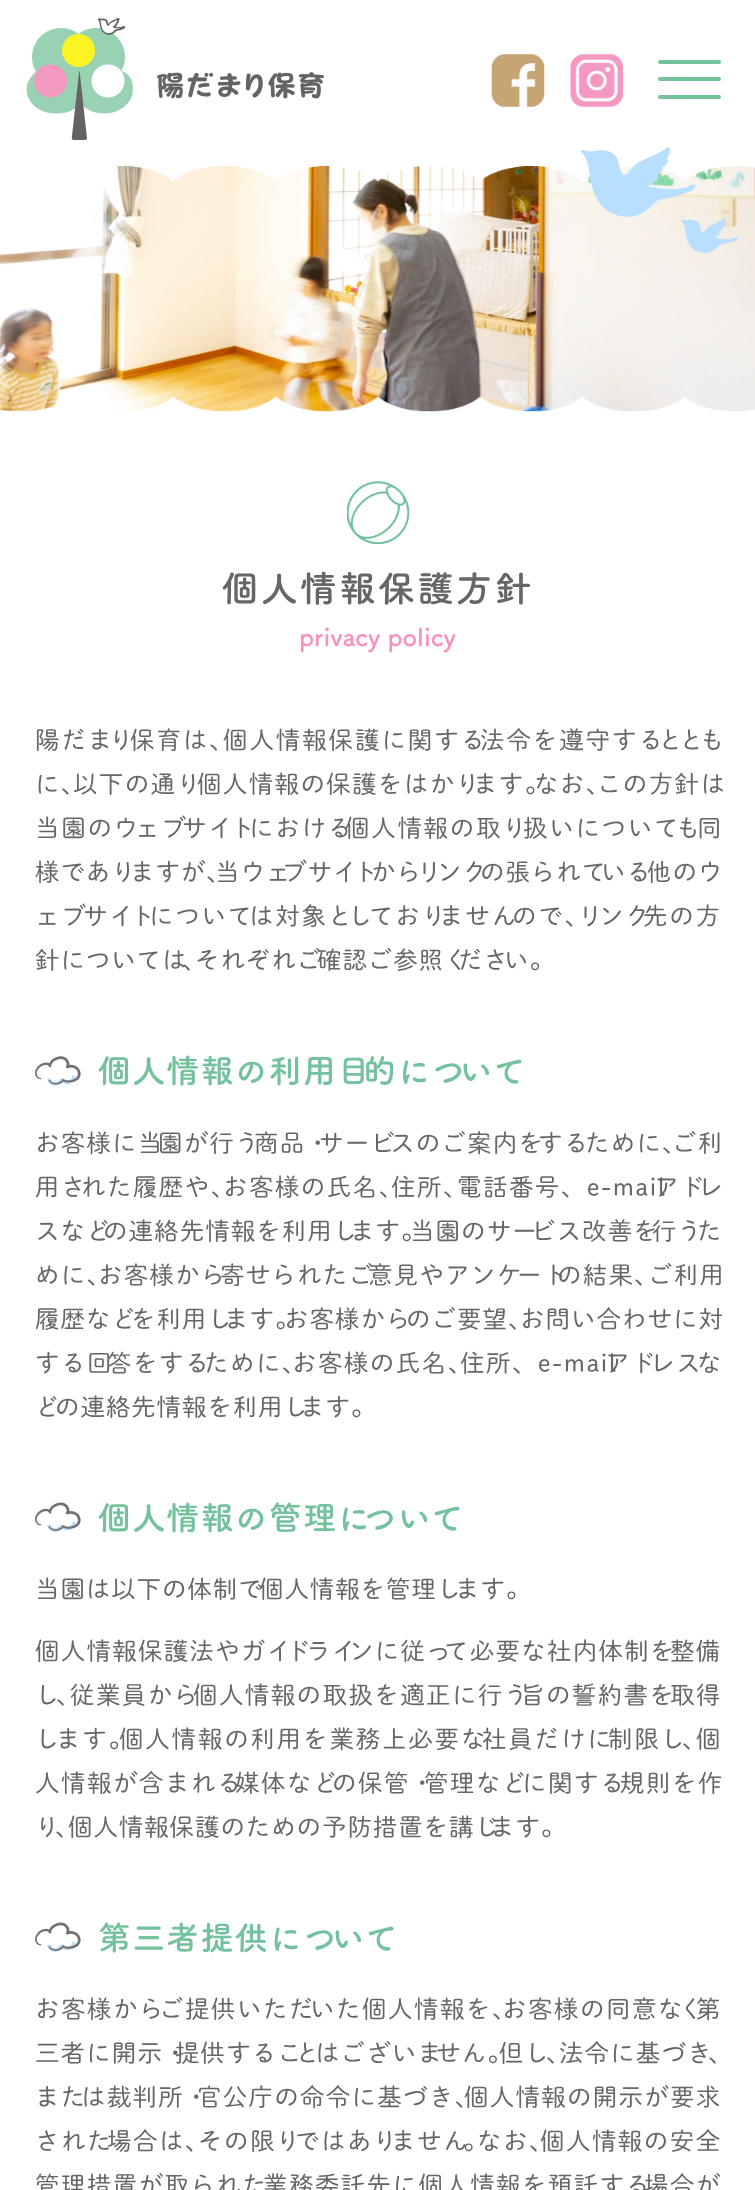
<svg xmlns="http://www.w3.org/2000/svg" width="755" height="2190">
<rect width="100%" height="100%" fill="#fff"/>
<image x="26" y="18" width="298" height="122" href="media/1.png"/>
<image x="491" y="54" width="54" height="53" href="media/2.png"/>
<image x="570" y="54" width="53" height="53" href="media/3.png"/>
<rect x="658" y="77" width="63" height="4" rx="2" fill="#74c19e"/>
<rect x="658" y="60" width="63" height="4" rx="2" fill="#74c19e"/>
<rect x="658" y="95" width="63" height="4" rx="2" fill="#74c19e"/>
<image x="0" y="166" width="755" height="246" href="media/5.png"/>
<image x="581" y="147" width="157" height="106" href="media/4.png"/>
<image x="347" y="481" width="63" height="63" href="media/6.png"/>
<text x="222" y="602" style="font-family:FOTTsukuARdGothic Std;font-size:36.75px;font-weight:bold;letter-spacing:2.25px;fill:#666">個人情報保護方針</text>
<text x="299" y="646" style="font-family:FOTTsukuARdGothic Std;font-size:24.5px;font-weight:bold;fill:#fa8fb9">privacy policy</text>
<text x="35" y="749" style="font-family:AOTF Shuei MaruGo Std;font-size:24.5px;letter-spacing:1.9px;fill:#666">陽だま</text>
<text x="109" y="749" style="font-family:AOTF Shuei MaruGo Std;font-size:24.5px;letter-spacing:1.9px;fill:#666">り</text>
<text x="130" y="749" style="font-family:AOTF Shuei MaruGo Std;font-size:24.5px;letter-spacing:1.9px;fill:#666">保育は、</text>
<text x="223" y="749" style="font-family:AOTF Shuei MaruGo Std;font-size:24.5px;letter-spacing:1.9px;fill:#666">個人情報保護に関する</text>
<text x="480" y="749" style="font-family:AOTF Shuei MaruGo Std;font-size:24.5px;letter-spacing:1.9px;fill:#666">法令を遵守する</text>
<text x="658" y="749" style="font-family:AOTF Shuei MaruGo Std;font-size:24.5px;letter-spacing:1.9px;fill:#666">と</text>
<text x="679" y="749" style="font-family:AOTF Shuei MaruGo Std;font-size:24.5px;letter-spacing:1.9px;fill:#666">と</text>
<text x="700" y="749" style="font-family:AOTF Shuei MaruGo Std;font-size:24.5px;letter-spacing:1.9px;fill:#666">も</text>
<text x="35" y="793" style="font-family:AOTF Shuei MaruGo Std;font-size:24.5px;letter-spacing:1.35px;fill:#666">に、</text>
<text x="73" y="793" style="font-family:AOTF Shuei MaruGo Std;font-size:24.5px;letter-spacing:1.35px;fill:#666">以下の通り</text>
<text x="197" y="793" style="font-family:AOTF Shuei MaruGo Std;font-size:24.5px;letter-spacing:1.35px;fill:#666">個人情報の保護をはかり</text>
<text x="473" y="793" style="font-family:AOTF Shuei MaruGo Std;font-size:24.5px;letter-spacing:1.35px;fill:#666">ます。</text>
<text x="534" y="793" style="font-family:AOTF Shuei MaruGo Std;font-size:24.5px;letter-spacing:1.35px;fill:#666">なお、</text>
<text x="597" y="793" style="font-family:AOTF Shuei MaruGo Std;font-size:24.5px;letter-spacing:1.35px;fill:#666">この方針は</text>
<text x="35" y="837" style="font-family:AOTF Shuei MaruGo Std;font-size:24.5px;letter-spacing:1.7px;fill:#666">当園のウ</text>
<text x="135" y="837" style="font-family:AOTF Shuei MaruGo Std;font-size:24.5px;letter-spacing:1.7px;fill:#666">ェブ</text>
<text x="182" y="837" style="font-family:AOTF Shuei MaruGo Std;font-size:24.5px;letter-spacing:1.7px;fill:#666">サイ</text>
<text x="230" y="837" style="font-family:AOTF Shuei MaruGo Std;font-size:24.5px;letter-spacing:1.7px;fill:#666">ト</text>
<text x="249" y="837" style="font-family:AOTF Shuei MaruGo Std;font-size:24.5px;letter-spacing:1.7px;fill:#666">における</text>
<text x="345" y="837" style="font-family:AOTF Shuei MaruGo Std;font-size:24.5px;letter-spacing:1.7px;fill:#666">個人情報の取り</text>
<text x="523" y="837" style="font-family:AOTF Shuei MaruGo Std;font-size:24.5px;letter-spacing:1.7px;fill:#666">扱いについて</text>
<text x="676" y="837" style="font-family:AOTF Shuei MaruGo Std;font-size:24.5px;letter-spacing:1.7px;fill:#666">も</text>
<text x="697" y="837" style="font-family:AOTF Shuei MaruGo Std;font-size:24.5px;letter-spacing:1.7px;fill:#666">同</text>
<text x="35" y="881" style="font-family:AOTF Shuei MaruGo Std;font-size:24.5px;letter-spacing:0.9px;fill:#666">様であり</text>
<text x="130" y="881" style="font-family:AOTF Shuei MaruGo Std;font-size:24.5px;letter-spacing:0.9px;fill:#666">ますが、</text>
<text x="215" y="881" style="font-family:AOTF Shuei MaruGo Std;font-size:24.5px;letter-spacing:0.9px;fill:#666">当ウェ</text>
<text x="282" y="881" style="font-family:AOTF Shuei MaruGo Std;font-size:24.5px;letter-spacing:0.9px;fill:#666">ブサイ</text>
<text x="353" y="881" style="font-family:AOTF Shuei MaruGo Std;font-size:24.5px;letter-spacing:0.9px;fill:#666">ト</text>
<text x="371" y="881" style="font-family:AOTF Shuei MaruGo Std;font-size:24.5px;letter-spacing:0.9px;fill:#666">から</text>
<text x="417" y="881" style="font-family:AOTF Shuei MaruGo Std;font-size:24.5px;letter-spacing:0.9px;fill:#666">リ</text>
<text x="437" y="881" style="font-family:AOTF Shuei MaruGo Std;font-size:24.5px;letter-spacing:0.9px;fill:#666">ンク</text>
<text x="480" y="881" style="font-family:AOTF Shuei MaruGo Std;font-size:24.5px;letter-spacing:0.9px;fill:#666">の張られて</text>
<text x="601" y="881" style="font-family:AOTF Shuei MaruGo Std;font-size:24.5px;letter-spacing:0.9px;fill:#666">いる</text>
<text x="647" y="881" style="font-family:AOTF Shuei MaruGo Std;font-size:24.5px;letter-spacing:0.9px;fill:#666">他のウ</text>
<text x="35" y="925" style="font-family:AOTF Shuei MaruGo Std;font-size:24.5px;letter-spacing:1.7px;fill:#666">ェブ</text>
<text x="83" y="925" style="font-family:AOTF Shuei MaruGo Std;font-size:24.5px;letter-spacing:1.7px;fill:#666">サイ</text>
<text x="130" y="925" style="font-family:AOTF Shuei MaruGo Std;font-size:24.5px;letter-spacing:1.7px;fill:#666">ト</text>
<text x="149" y="925" style="font-family:AOTF Shuei MaruGo Std;font-size:24.5px;letter-spacing:1.7px;fill:#666">について</text>
<text x="249" y="925" style="font-family:AOTF Shuei MaruGo Std;font-size:24.5px;letter-spacing:1.7px;fill:#666">は対象と</text>
<text x="348" y="925" style="font-family:AOTF Shuei MaruGo Std;font-size:24.5px;letter-spacing:1.7px;fill:#666">し</text>
<text x="369" y="925" style="font-family:AOTF Shuei MaruGo Std;font-size:24.5px;letter-spacing:1.7px;fill:#666">ており</text>
<text x="439" y="925" style="font-family:AOTF Shuei MaruGo Std;font-size:24.5px;letter-spacing:1.7px;fill:#666">ません</text>
<text x="512" y="925" style="font-family:AOTF Shuei MaruGo Std;font-size:24.5px;letter-spacing:1.7px;fill:#666">ので、</text>
<text x="578" y="925" style="font-family:AOTF Shuei MaruGo Std;font-size:24.5px;letter-spacing:1.7px;fill:#666">リ</text>
<text x="599" y="925" style="font-family:AOTF Shuei MaruGo Std;font-size:24.5px;letter-spacing:1.7px;fill:#666">ンク</text>
<text x="643" y="925" style="font-family:AOTF Shuei MaruGo Std;font-size:24.5px;letter-spacing:1.7px;fill:#666">先の方</text>
<text x="35" y="969" style="font-family:AOTF Shuei MaruGo Std;font-size:24.5px;letter-spacing:0.9px;fill:#666">針については</text>
<text x="182" y="969" style="font-family:AOTF Shuei MaruGo Std;font-size:24.5px;letter-spacing:0.9px;fill:#666">、</text>
<text x="195" y="969" style="font-family:AOTF Shuei MaruGo Std;font-size:24.5px;letter-spacing:0.9px;fill:#666">それぞれご</text>
<text x="317" y="969" style="font-family:AOTF Shuei MaruGo Std;font-size:24.5px;letter-spacing:0.9px;fill:#666">確認ご参照く</text>
<text x="458" y="969" style="font-family:AOTF Shuei MaruGo Std;font-size:24.5px;letter-spacing:0.9px;fill:#666">ださ</text>
<text x="504" y="969" style="font-family:AOTF Shuei MaruGo Std;font-size:24.5px;letter-spacing:0.9px;fill:#666">い。</text>
<image x="35" y="1056" width="46" height="30" href="media/7.png"/>
<text x="98" y="1083" style="font-family:FOTTsukuARdGothic Std;font-size:33.25px;font-weight:bold;letter-spacing:0.9px;fill:#74c19e">個人情報の利用目</text>
<text x="363" y="1083" style="font-family:FOTTsukuARdGothic Std;font-size:33.25px;font-weight:bold;letter-spacing:0.9px;fill:#74c19e">的につ</text>
<text x="459" y="1083" style="font-family:FOTTsukuARdGothic Std;font-size:33.25px;font-weight:bold;letter-spacing:0.9px;fill:#74c19e">いて</text>
<text x="35" y="1152" style="font-family:AOTF Shuei MaruGo Std;font-size:24.5px;letter-spacing:1.2px;fill:#666">お客様に当</text>
<text x="158" y="1152" style="font-family:AOTF Shuei MaruGo Std;font-size:24.5px;letter-spacing:1.2px;fill:#666">園が行う</text>
<text x="254" y="1152" style="font-family:AOTF Shuei MaruGo Std;font-size:24.5px;letter-spacing:1.2px;fill:#666">商品・</text>
<text x="319" y="1152" style="font-family:AOTF Shuei MaruGo Std;font-size:24.5px;letter-spacing:1.2px;fill:#666">サービ</text>
<text x="390" y="1152" style="font-family:AOTF Shuei MaruGo Std;font-size:24.5px;letter-spacing:1.2px;fill:#666">スのご案内を</text>
<text x="538" y="1152" style="font-family:AOTF Shuei MaruGo Std;font-size:24.5px;letter-spacing:1.2px;fill:#666">する</text>
<text x="585" y="1152" style="font-family:AOTF Shuei MaruGo Std;font-size:24.5px;letter-spacing:1.2px;fill:#666">ために、</text>
<text x="672" y="1152" style="font-family:AOTF Shuei MaruGo Std;font-size:24.5px;letter-spacing:1.2px;fill:#666">ご利</text>
<text x="35" y="1196" style="font-family:AOTF Shuei MaruGo Std;font-size:24.5px;letter-spacing:1.45px;fill:#666">用さ</text>
<text x="81" y="1196" style="font-family:AOTF Shuei MaruGo Std;font-size:24.5px;letter-spacing:1.45px;fill:#666">れた履歴や、</text>
<text x="223" y="1196" style="font-family:AOTF Shuei MaruGo Std;font-size:24.5px;letter-spacing:1.45px;fill:#666">お客様の氏名、</text>
<text x="391" y="1196" style="font-family:AOTF Shuei MaruGo Std;font-size:24.5px;letter-spacing:1.45px;fill:#666">住所、</text>
<text x="457" y="1196" style="font-family:AOTF Shuei MaruGo Std;font-size:24.5px;letter-spacing:1.45px;fill:#666">電話番号、e-mail</text>
<text x="654" y="1196" style="font-family:AOTF Shuei MaruGo Std;font-size:24.5px;letter-spacing:1.45px;fill:#666">アド</text>
<text x="698" y="1196" style="font-family:AOTF Shuei MaruGo Std;font-size:24.5px;letter-spacing:1.45px;fill:#666">レ</text>
<text x="35" y="1240" style="font-family:AOTF Shuei MaruGo Std;font-size:24.5px;letter-spacing:1.05px;fill:#666">スなど</text>
<text x="103" y="1240" style="font-family:AOTF Shuei MaruGo Std;font-size:24.5px;letter-spacing:1.05px;fill:#666">の連絡先情報を利用し</text>
<text x="350" y="1240" style="font-family:AOTF Shuei MaruGo Std;font-size:24.5px;letter-spacing:1.05px;fill:#666">ます。</text>
<text x="410" y="1240" style="font-family:AOTF Shuei MaruGo Std;font-size:24.5px;letter-spacing:1.05px;fill:#666">当園のサー</text>
<text x="531" y="1240" style="font-family:AOTF Shuei MaruGo Std;font-size:24.5px;letter-spacing:1.05px;fill:#666">ビス改善を</text>
<text x="652" y="1240" style="font-family:AOTF Shuei MaruGo Std;font-size:24.5px;letter-spacing:1.05px;fill:#666">行う</text>
<text x="697" y="1240" style="font-family:AOTF Shuei MaruGo Std;font-size:24.5px;letter-spacing:1.05px;fill:#666">た</text>
<text x="35" y="1284" style="font-family:AOTF Shuei MaruGo Std;font-size:24.5px;letter-spacing:1.2px;fill:#666">めに、</text>
<text x="98" y="1284" style="font-family:AOTF Shuei MaruGo Std;font-size:24.5px;letter-spacing:1.2px;fill:#666">お客様から</text>
<text x="220" y="1284" style="font-family:AOTF Shuei MaruGo Std;font-size:24.5px;letter-spacing:1.2px;fill:#666">寄せられたご</text>
<text x="368" y="1284" style="font-family:AOTF Shuei MaruGo Std;font-size:24.5px;letter-spacing:1.2px;fill:#666">意見やアンケ</text>
<text x="517" y="1284" style="font-family:AOTF Shuei MaruGo Std;font-size:24.5px;letter-spacing:1.2px;fill:#666">ート</text>
<text x="557" y="1284" style="font-family:AOTF Shuei MaruGo Std;font-size:24.5px;letter-spacing:1.2px;fill:#666">の結果、</text>
<text x="648" y="1284" style="font-family:AOTF Shuei MaruGo Std;font-size:24.5px;letter-spacing:1.2px;fill:#666">ご利用</text>
<text x="35" y="1328" style="font-family:AOTF Shuei MaruGo Std;font-size:24.5px;letter-spacing:1px;fill:#666">履歴など</text>
<text x="131" y="1328" style="font-family:AOTF Shuei MaruGo Std;font-size:24.5px;letter-spacing:1px;fill:#666">を利用し</text>
<text x="224" y="1328" style="font-family:AOTF Shuei MaruGo Std;font-size:24.5px;letter-spacing:1px;fill:#666">ます。</text>
<text x="284" y="1328" style="font-family:AOTF Shuei MaruGo Std;font-size:24.5px;letter-spacing:1px;fill:#666">お客様から</text>
<text x="406" y="1328" style="font-family:AOTF Shuei MaruGo Std;font-size:24.5px;letter-spacing:1px;fill:#666">のご要望、</text>
<text x="520" y="1328" style="font-family:AOTF Shuei MaruGo Std;font-size:24.5px;letter-spacing:1px;fill:#666">お問い合わせに対</text>
<text x="35" y="1372" style="font-family:AOTF Shuei MaruGo Std;font-size:24.5px;letter-spacing:1.45px;fill:#666">する回</text>
<text x="107" y="1372" style="font-family:AOTF Shuei MaruGo Std;font-size:24.5px;letter-spacing:1.45px;fill:#666">答をする</text>
<text x="204" y="1372" style="font-family:AOTF Shuei MaruGo Std;font-size:24.5px;letter-spacing:1.45px;fill:#666">ために、</text>
<text x="292" y="1372" style="font-family:AOTF Shuei MaruGo Std;font-size:24.5px;letter-spacing:1.45px;fill:#666">お客様の氏名、</text>
<text x="460" y="1372" style="font-family:AOTF Shuei MaruGo Std;font-size:24.5px;letter-spacing:1.45px;fill:#666">住所、e-mail</text>
<text x="605" y="1372" style="font-family:AOTF Shuei MaruGo Std;font-size:24.5px;letter-spacing:1.45px;fill:#666">アド</text>
<text x="650" y="1372" style="font-family:AOTF Shuei MaruGo Std;font-size:24.5px;letter-spacing:1.45px;fill:#666">レス</text>
<text x="697" y="1372" style="font-family:AOTF Shuei MaruGo Std;font-size:24.5px;letter-spacing:1.45px;fill:#666">な</text>
<text x="35" y="1416" style="font-family:AOTF Shuei MaruGo Std;font-size:24.5px;letter-spacing:0.9px;fill:#666">ど</text>
<text x="55" y="1416" style="font-family:AOTF Shuei MaruGo Std;font-size:24.5px;letter-spacing:0.9px;fill:#666">の連絡先情報を利用し</text>
<text x="300" y="1416" style="font-family:AOTF Shuei MaruGo Std;font-size:24.5px;letter-spacing:0.9px;fill:#666">ます。</text>
<image x="35" y="1502" width="46" height="30" href="media/8.png"/>
<text x="98" y="1530" style="font-family:FOTTsukuARdGothic Std;font-size:33.25px;font-weight:bold;letter-spacing:0.9px;fill:#74c19e">個人情報の管理に</text>
<text x="363" y="1530" style="font-family:FOTTsukuARdGothic Std;font-size:33.25px;font-weight:bold;letter-spacing:0.9px;fill:#74c19e">ついて</text>
<text x="35" y="1598" style="font-family:AOTF Shuei MaruGo Std;font-size:24.5px;letter-spacing:0.9px;fill:#666">当園は以下の体制で</text>
<text x="259" y="1598" style="font-family:AOTF Shuei MaruGo Std;font-size:24.5px;letter-spacing:0.9px;fill:#666">個人情報を管理し</text>
<text x="455" y="1598" style="font-family:AOTF Shuei MaruGo Std;font-size:24.5px;letter-spacing:0.9px;fill:#666">ます。</text>
<text x="35" y="1660" style="font-family:AOTF Shuei MaruGo Std;font-size:24.5px;letter-spacing:1.25px;fill:#666">個人情報保護法やガイ</text>
<text x="286" y="1660" style="font-family:AOTF Shuei MaruGo Std;font-size:24.5px;letter-spacing:1.25px;fill:#666">ド</text>
<text x="306" y="1660" style="font-family:AOTF Shuei MaruGo Std;font-size:24.5px;letter-spacing:1.25px;fill:#666">ライ</text>
<text x="349" y="1660" style="font-family:AOTF Shuei MaruGo Std;font-size:24.5px;letter-spacing:1.25px;fill:#666">ンに従っ</text>
<text x="444" y="1660" style="font-family:AOTF Shuei MaruGo Std;font-size:24.5px;letter-spacing:1.25px;fill:#666">て必要な社内体制を</text>
<text x="670" y="1660" style="font-family:AOTF Shuei MaruGo Std;font-size:24.5px;letter-spacing:1.25px;fill:#666">整備</text>
<text x="35" y="1704" style="font-family:AOTF Shuei MaruGo Std;font-size:24.5px;letter-spacing:1.4px;fill:#666">し</text>
<text x="56" y="1704" style="font-family:AOTF Shuei MaruGo Std;font-size:24.5px;letter-spacing:1.4px;fill:#666">、</text>
<text x="70" y="1704" style="font-family:AOTF Shuei MaruGo Std;font-size:24.5px;letter-spacing:1.4px;fill:#666">従業員から</text>
<text x="193" y="1704" style="font-family:AOTF Shuei MaruGo Std;font-size:24.5px;letter-spacing:1.4px;fill:#666">個人情報の取扱を適正に行う</text>
<text x="520" y="1704" style="font-family:AOTF Shuei MaruGo Std;font-size:24.5px;letter-spacing:1.4px;fill:#666">旨の誓約書を</text>
<text x="670" y="1704" style="font-family:AOTF Shuei MaruGo Std;font-size:24.5px;letter-spacing:1.4px;fill:#666">取得</text>
<text x="35" y="1748" style="font-family:AOTF Shuei MaruGo Std;font-size:24.5px;letter-spacing:1.8px;fill:#666">し</text>
<text x="56" y="1748" style="font-family:AOTF Shuei MaruGo Std;font-size:24.5px;letter-spacing:1.8px;fill:#666">ます。</text>
<text x="119" y="1748" style="font-family:AOTF Shuei MaruGo Std;font-size:24.5px;letter-spacing:1.8px;fill:#666">個人情報の利用を業務上必要な</text>
<text x="482" y="1748" style="font-family:AOTF Shuei MaruGo Std;font-size:24.5px;letter-spacing:1.8px;fill:#666">社員だけに</text>
<text x="608" y="1748" style="font-family:AOTF Shuei MaruGo Std;font-size:24.5px;letter-spacing:1.8px;fill:#666">制限し</text>
<text x="682" y="1748" style="font-family:AOTF Shuei MaruGo Std;font-size:24.5px;letter-spacing:1.8px;fill:#666">、</text>
<text x="696" y="1748" style="font-family:AOTF Shuei MaruGo Std;font-size:24.5px;letter-spacing:1.8px;fill:#666">個</text>
<text x="35" y="1792" style="font-family:AOTF Shuei MaruGo Std;font-size:24.5px;letter-spacing:1.5px;fill:#666">人情報が含まれる</text>
<text x="235" y="1792" style="font-family:AOTF Shuei MaruGo Std;font-size:24.5px;letter-spacing:1.5px;fill:#666">媒体など</text>
<text x="332" y="1792" style="font-family:AOTF Shuei MaruGo Std;font-size:24.5px;letter-spacing:1.5px;fill:#666">の保管・</text>
<text x="424" y="1792" style="font-family:AOTF Shuei MaruGo Std;font-size:24.5px;letter-spacing:1.5px;fill:#666">管理など</text>
<text x="522" y="1792" style="font-family:AOTF Shuei MaruGo Std;font-size:24.5px;letter-spacing:1.5px;fill:#666">に関する</text>
<text x="620" y="1792" style="font-family:AOTF Shuei MaruGo Std;font-size:24.5px;letter-spacing:1.5px;fill:#666">規則を作</text>
<text x="35" y="1836" style="font-family:AOTF Shuei MaruGo Std;font-size:24.5px;letter-spacing:0.9px;fill:#666">り</text>
<text x="55" y="1836" style="font-family:AOTF Shuei MaruGo Std;font-size:24.5px;letter-spacing:0.9px;fill:#666">、</text>
<text x="68" y="1836" style="font-family:AOTF Shuei MaruGo Std;font-size:24.5px;letter-spacing:0.9px;fill:#666">個人情報保護のための予防措置を講じ</text>
<text x="490" y="1836" style="font-family:AOTF Shuei MaruGo Std;font-size:24.5px;letter-spacing:0.9px;fill:#666">ます。</text>
<image x="35" y="1922" width="46" height="30" href="media/8.png"/>
<text x="98" y="1950" style="font-family:FOTTsukuARdGothic Std;font-size:33.25px;font-weight:bold;letter-spacing:0.9px;fill:#74c19e">第三者提供につ</text>
<text x="331" y="1950" style="font-family:FOTTsukuARdGothic Std;font-size:33.25px;font-weight:bold;letter-spacing:0.9px;fill:#74c19e">いて</text>
<text x="35" y="2018" style="font-family:AOTF Shuei MaruGo Std;font-size:24.5px;letter-spacing:1.5px;fill:#666">お客様から</text>
<text x="159" y="2018" style="font-family:AOTF Shuei MaruGo Std;font-size:24.5px;letter-spacing:1.5px;fill:#666">ご提供いただ</text>
<text x="310" y="2018" style="font-family:AOTF Shuei MaruGo Std;font-size:24.5px;letter-spacing:1.5px;fill:#666">いた個人情報を、</text>
<text x="502" y="2018" style="font-family:AOTF Shuei MaruGo Std;font-size:24.5px;letter-spacing:1.5px;fill:#666">お客様の同意な</text>
<text x="679" y="2018" style="font-family:AOTF Shuei MaruGo Std;font-size:24.5px;letter-spacing:1.5px;fill:#666">く</text>
<text x="696" y="2018" style="font-family:AOTF Shuei MaruGo Std;font-size:24.5px;letter-spacing:1.5px;fill:#666">第</text>
<text x="35" y="2062" style="font-family:AOTF Shuei MaruGo Std;font-size:24.5px;letter-spacing:1.1px;fill:#666">三者に開示・</text>
<text x="175" y="2062" style="font-family:AOTF Shuei MaruGo Std;font-size:24.5px;letter-spacing:1.1px;fill:#666">提供するこ</text>
<text x="295" y="2062" style="font-family:AOTF Shuei MaruGo Std;font-size:24.5px;letter-spacing:1.1px;fill:#666">と</text>
<text x="315" y="2062" style="font-family:AOTF Shuei MaruGo Std;font-size:24.5px;letter-spacing:1.1px;fill:#666">はございま</text>
<text x="436" y="2062" style="font-family:AOTF Shuei MaruGo Std;font-size:24.5px;letter-spacing:1.1px;fill:#666">せん。</text>
<text x="499" y="2062" style="font-family:AOTF Shuei MaruGo Std;font-size:24.5px;letter-spacing:1.1px;fill:#666">但し</text>
<text x="546" y="2062" style="font-family:AOTF Shuei MaruGo Std;font-size:24.5px;letter-spacing:1.1px;fill:#666">、</text>
<text x="559" y="2062" style="font-family:AOTF Shuei MaruGo Std;font-size:24.5px;letter-spacing:1.1px;fill:#666">法令に基づき</text>
<text x="708" y="2062" style="font-family:AOTF Shuei MaruGo Std;font-size:24.5px;letter-spacing:1.1px;fill:#666">、</text>
<text x="35" y="2106" style="font-family:AOTF Shuei MaruGo Std;font-size:24.5px;letter-spacing:1.25px;fill:#666">また</text>
<text x="81" y="2106" style="font-family:AOTF Shuei MaruGo Std;font-size:24.5px;letter-spacing:1.25px;fill:#666">は裁判所・</text>
<text x="197" y="2106" style="font-family:AOTF Shuei MaruGo Std;font-size:24.5px;letter-spacing:1.25px;fill:#666">官公庁の命令に基づき、</text>
<text x="464" y="2106" style="font-family:AOTF Shuei MaruGo Std;font-size:24.5px;letter-spacing:1.25px;fill:#666">個人情報の開示が要求</text>
<text x="35" y="2150" style="font-family:AOTF Shuei MaruGo Std;font-size:24.5px;letter-spacing:1.45px;fill:#666">された</text>
<text x="107" y="2150" style="font-family:AOTF Shuei MaruGo Std;font-size:24.5px;letter-spacing:1.45px;fill:#666">場合は、</text>
<text x="198" y="2150" style="font-family:AOTF Shuei MaruGo Std;font-size:24.5px;letter-spacing:1.45px;fill:#666">その限り</text>
<text x="295" y="2150" style="font-family:AOTF Shuei MaruGo Std;font-size:24.5px;letter-spacing:1.45px;fill:#666">ではあり</text>
<text x="391" y="2150" style="font-family:AOTF Shuei MaruGo Std;font-size:24.5px;letter-spacing:1.45px;fill:#666">ません</text>
<text x="463" y="2150" style="font-family:AOTF Shuei MaruGo Std;font-size:24.5px;letter-spacing:1.45px;fill:#666">。</text>
<text x="477" y="2150" style="font-family:AOTF Shuei MaruGo Std;font-size:24.5px;letter-spacing:1.45px;fill:#666">なお、</text>
<text x="540" y="2150" style="font-family:AOTF Shuei MaruGo Std;font-size:24.5px;letter-spacing:1.45px;fill:#666">個人情報の安全</text>
<text x="35" y="2194" style="font-family:AOTF Shuei MaruGo Std;font-size:24.5px;letter-spacing:1.4px;fill:#666">管理措置が取られた</text>
<text x="263" y="2194" style="font-family:AOTF Shuei MaruGo Std;font-size:24.5px;letter-spacing:1.4px;fill:#666">業務委託先に個人情報を預託する</text>
<text x="644" y="2194" style="font-family:AOTF Shuei MaruGo Std;font-size:24.5px;letter-spacing:1.4px;fill:#666">場合が</text>
</svg>
